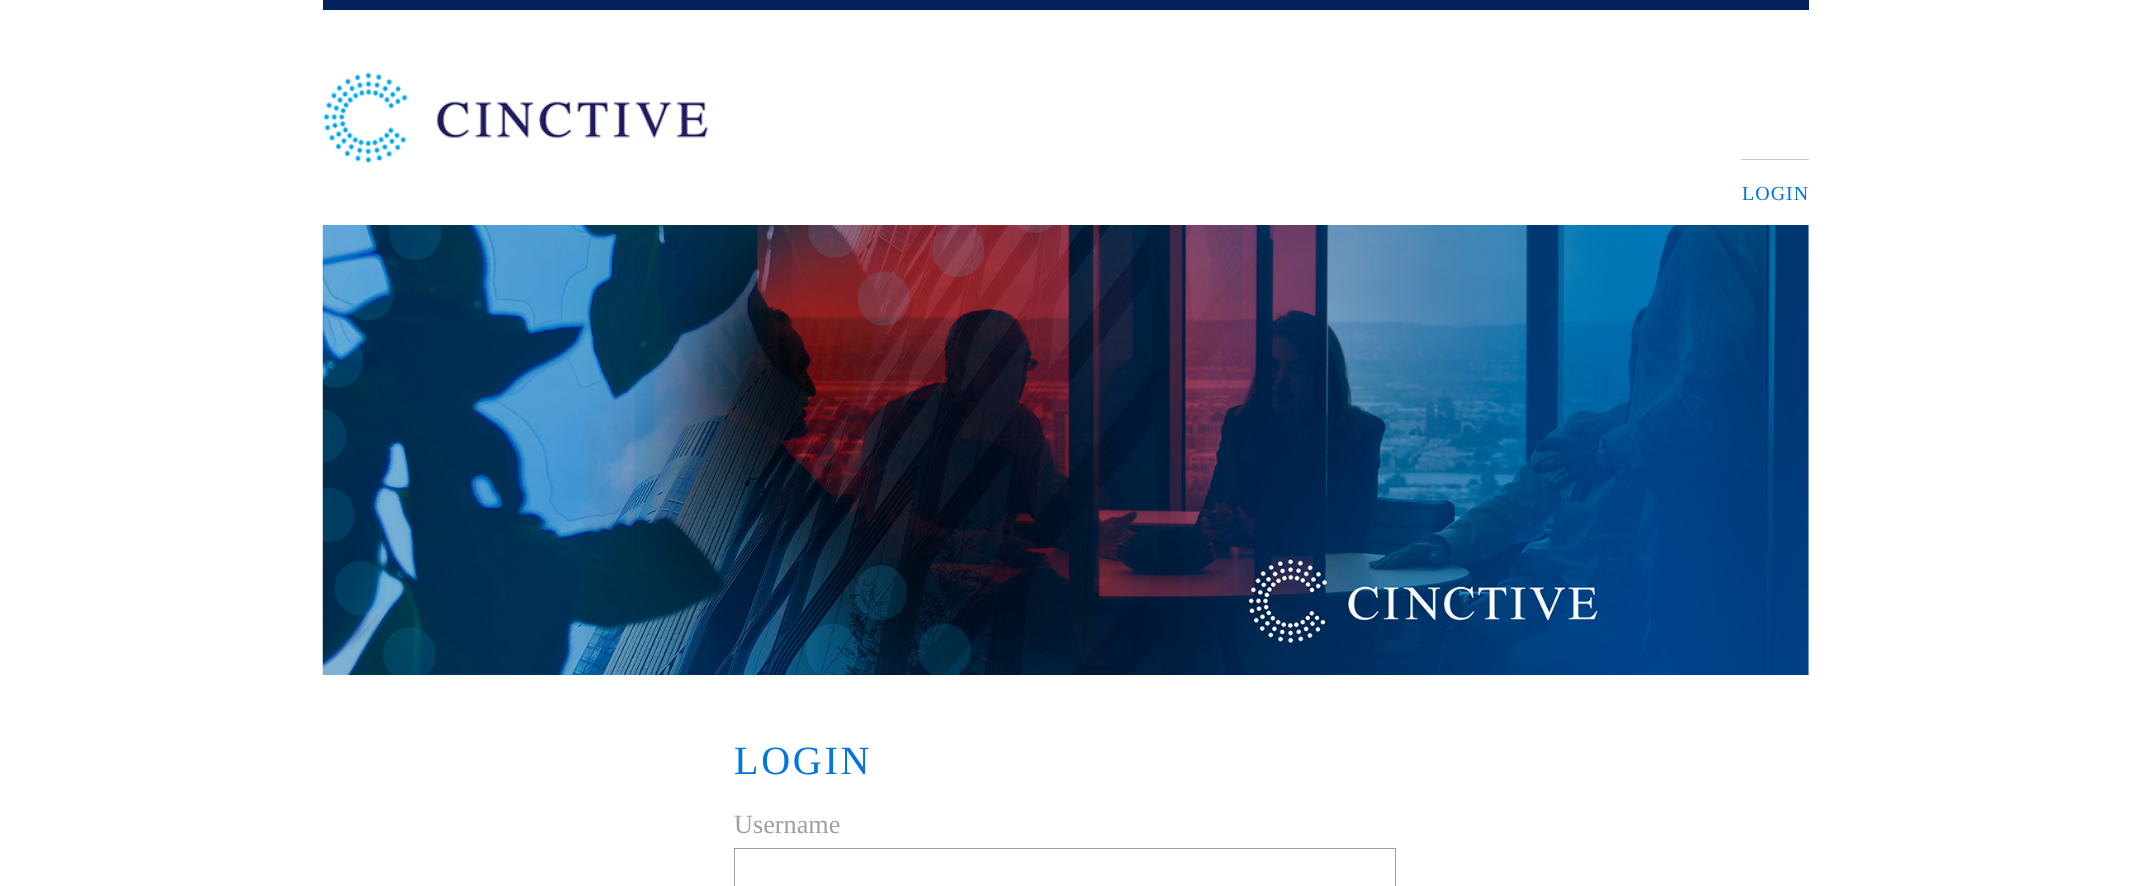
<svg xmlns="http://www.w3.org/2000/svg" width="2130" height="886">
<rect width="100%" height="100%" fill="#fff"/>
<rect x="323" width="1486" height="10" fill="#03215c"/>
<image x="323" y="72" width="385" height="91" href="media/1.png"/>
<rect x="1741" y="159" width="68" height="1" fill="#c8c8c8"/>
<text x="1742" y="200" style="font-family:Liberation Serif;font-size:20px;letter-spacing:1px;fill:#0076de">LOGIN</text>
<image x="322" y="225" width="1487" height="450" href="media/2.png"/>
<text x="734" y="774" style="font-family:Liberation Serif;font-size:40px;letter-spacing:2.75px;fill:#0076de">LOGIN</text>
<text x="734" y="833" style="font-family:Liberation Serif;font-size:26.25px;fill:#a0a09f">Username</text>
<rect x="734.5" y="848.5" width="661" height="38" fill="none" stroke="#a0a09f"/>
</svg>
